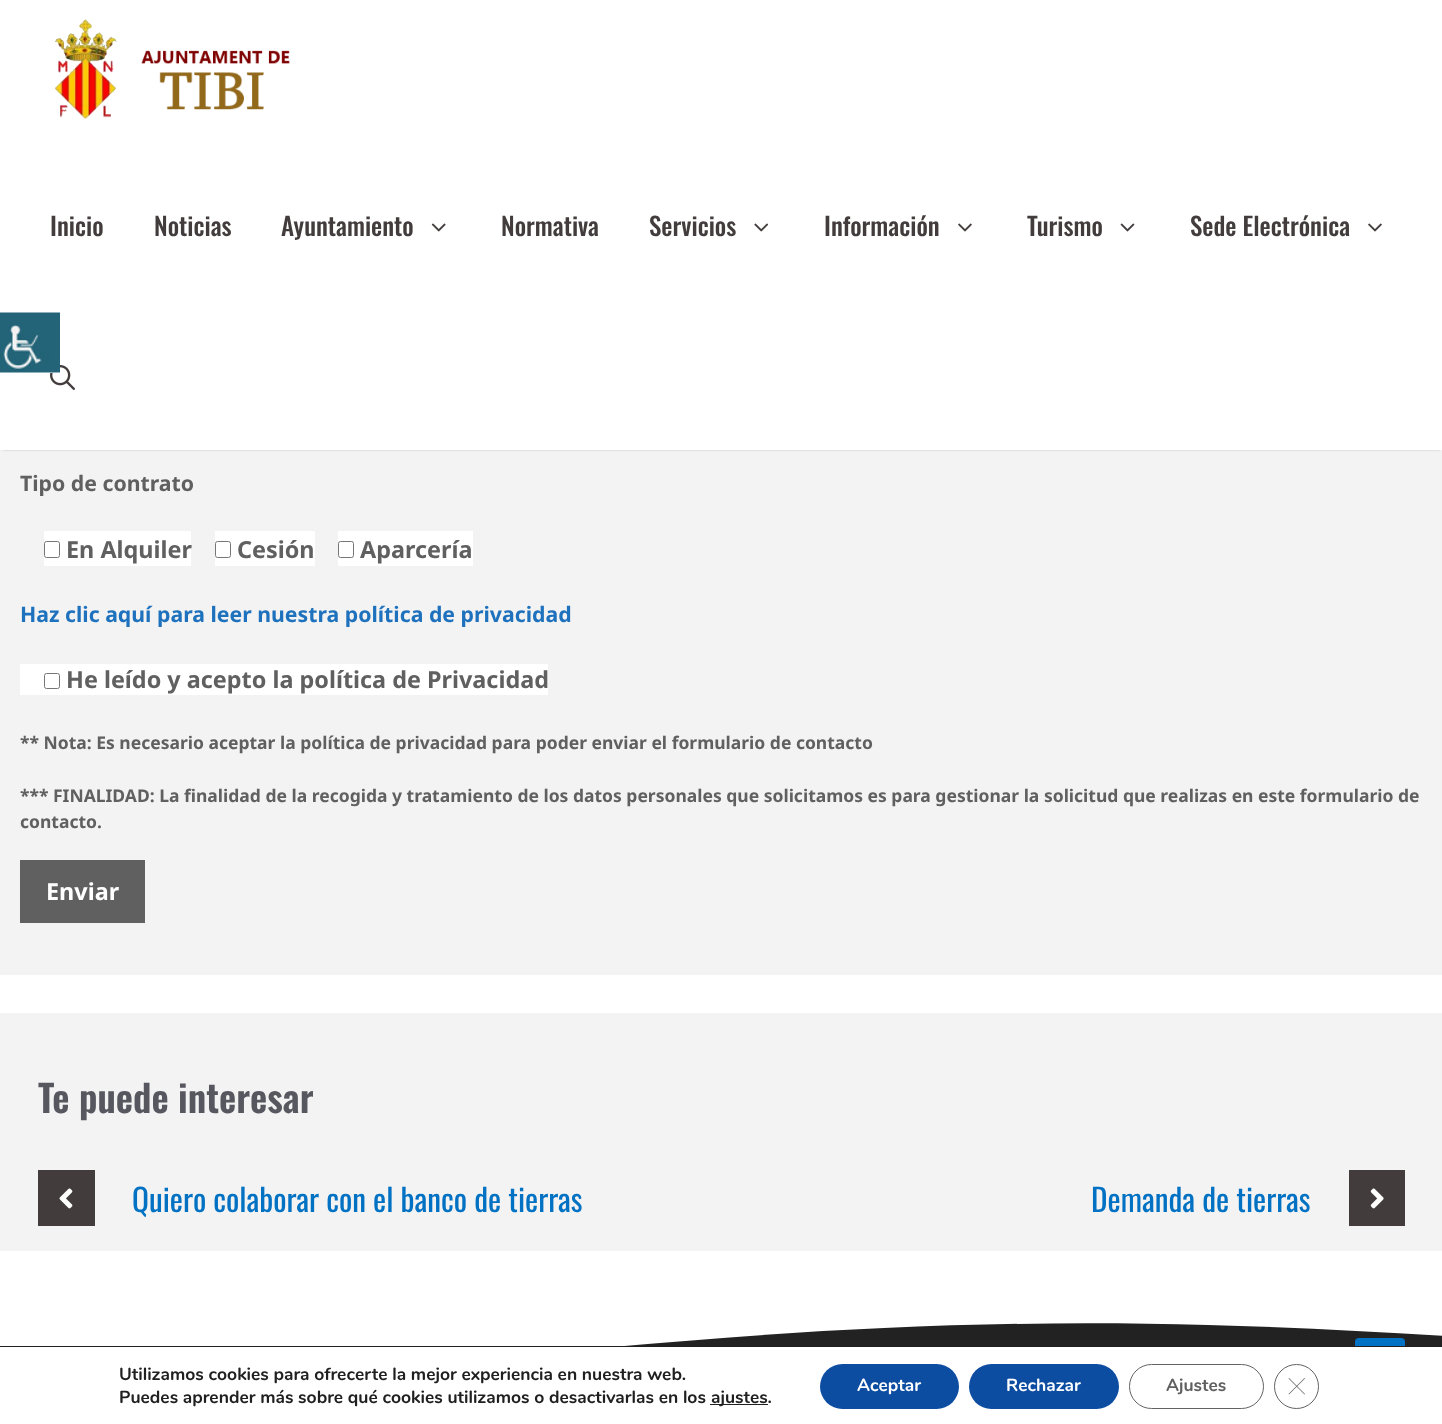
<svg xmlns="http://www.w3.org/2000/svg" width="1442" height="1424">
<rect width="100%" height="100%" fill="#fff"/>
<rect y="450" width="1442" height="525" fill="#f3f3f3"/>
<rect x="3" y="5" width="1437" height="445" fill="#00000033" filter="blur(1px)"/>
<rect x="1" y="3" width="1441" height="447" fill="#fff"/>
<image x="55" y="19" width="235" height="100" href="media/1.png"/>
<text x="50" y="236" style="font-family:Oswald;font-size:25px;font-weight:500;fill:#423c3c">Inicio</text>
<text x="154" y="236" style="font-family:Oswald;font-size:25px;font-weight:500;fill:#423c3c">Noticias</text>
<text x="281" y="236" style="font-family:Oswald;font-size:25px;font-weight:500;fill:#423c3c">Ayuntamiento</text>
<image x="431" y="223" width="15" height="9" href="media/2.png"/>
<text x="501" y="236" style="font-family:Oswald;font-size:25px;font-weight:500;fill:#423c3c">Normativa</text>
<text x="649" y="236" style="font-family:Oswald;font-size:25px;font-weight:500;fill:#423c3c">Servicios</text>
<image x="754" y="223" width="15" height="9" href="media/3.png"/>
<text x="824" y="236" style="font-family:Oswald;font-size:25px;font-weight:500;fill:#423c3c">Información</text>
<image x="958" y="223" width="14" height="9" href="media/4.png"/>
<text x="1027" y="236" style="font-family:Oswald;font-size:25px;font-weight:500;fill:#423c3c">Turismo</text>
<image x="1120" y="223" width="15" height="9" href="media/5.png"/>
<text x="1190" y="236" style="font-family:Oswald;font-size:25px;font-weight:500;fill:#423c3c">Sede Electrónica</text>
<image x="1368" y="223" width="14" height="9" href="media/4.png"/>
<image x="50" y="365" width="25" height="25" href="media/6.png"/>
<rect x="50" y="372" width="10" height="1" fill="#fff"/>
<image x="0" y="312" width="60" height="61" href="media/7.png"/>
<text x="20" y="491" style="font-family:Noto Sans;font-size:21.25px;font-weight:bold;fill:#606060">Tipo de contrato</text>
<rect x="44" y="531" width="147" height="35" fill="#fff"/>
<rect x="215" y="531" width="100" height="35" fill="#fff"/>
<rect x="338" y="531" width="135" height="35" fill="#fff"/>
<rect x="44.5" y="541.5" width="15" height="16" rx="2" fill="none" stroke="#767676"/>
<text x="66" y="558" style="font-family:Noto Sans;font-size:23.4px;font-weight:bold;fill:#606060">En Alquiler</text>
<rect x="215.5" y="541.5" width="15" height="16" rx="2" fill="none" stroke="#767676"/>
<text x="237" y="558" style="font-family:Noto Sans;font-size:23.4px;font-weight:bold;fill:#606060">Cesión</text>
<rect x="338.5" y="541.5" width="15" height="16" rx="2" fill="none" stroke="#767676"/>
<text x="360" y="558" style="font-family:Noto Sans;font-size:23.4px;font-weight:bold;fill:#606060">Aparcería</text>
<text x="20" y="622" style="font-family:Noto Sans;font-size:21.25px;font-weight:bold;fill:#1e72bd">Haz clic aquí para leer nuestra política de privacidad</text>
<rect x="20" y="664" width="528" height="31" fill="#fff"/>
<rect x="44.5" y="673.5" width="15" height="15" rx="2" fill="none" stroke="#767676"/>
<text x="66" y="688" style="font-family:Noto Sans;font-size:23.4px;font-weight:bold;fill:#606060">He leído y acepto la política de Privacidad</text>
<text x="20" y="749" style="font-family:Noto Sans;font-size:17.5px;font-weight:bold;fill:#606060">** Nota: Es necesario aceptar la política de privacidad para poder enviar el formulario de contacto</text>
<text x="20" y="802" style="font-family:Noto Sans;font-size:17.5px;font-weight:bold;fill:#606060">*** FINALIDAD: La finalidad de la recogida y tratamiento de los datos personales que solicitamos es para gestionar la solicitud que realizas en este formulario de</text>
<text x="20" y="828" style="font-family:Noto Sans;font-size:17.5px;font-weight:bold;fill:#606060">contacto.</text>
<rect x="20" y="860" width="125" height="63" fill="#606060"/>
<text x="46" y="900" style="font-family:Noto Sans;font-size:23.4px;font-weight:bold;fill:#fff">Enviar</text>
<rect y="1013" width="1442" height="238" fill="#f3f3f3"/>
<text x="38" y="1113" style="font-family:Oswald;font-size:37.5px;font-weight:600;fill:#575760">Te puede interesar</text>
<rect x="38" y="1170" width="57" height="56" fill="#423c3c"/>
<image x="59" y="1188" width="14" height="21" href="media/8.png"/>
<text x="132" y="1212" style="font-family:Oswald;font-size:31.25px;fill:#0071c3">Quiero colaborar con el banco de tierras</text>
<text x="1091" y="1212" style="font-family:Oswald;font-size:31.25px;fill:#0071c3">Demanda de tierras</text>
<rect x="1349" y="1170" width="56" height="56" fill="#423c3c"/>
<image x="1370" y="1188" width="14" height="21" href="media/9.png"/>
<rect x="625" y="1323" width="817" height="23" fill="#222"/>
<path d="M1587 1345c-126-8-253-17-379-20c-108-3-216-2-324 3c-91 4-181 11-271 19l-324 34c-145 14-289 23-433 32v-100h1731z" fill="#fff"/>
<rect x="1355" y="1338" width="50" height="50" rx="4" fill="#0071c3"/>
<rect x="1355" y="1347" width="50" height="41" fill="#fff"/>
<rect y="1346" width="1442" height="1" fill="#202020"/>
<text x="119" y="1380" style="font-family:Nunito;font-size:17.5px;font-weight:bold;fill:#202020">Utilizamos cookies para ofrecerte la mejor experiencia en nuestra web.</text>
<text x="119" y="1403" style="font-family:Nunito;font-size:17.5px;font-weight:bold;fill:#202020">Puedes aprender más sobre qué cookies utilizamos o desactivarlas en los</text>
<rect x="710" y="1404" width="58" height="1" fill="#202020"/>
<text x="711" y="1403" style="font-family:Nunito;font-size:17.5px;font-weight:bold;fill:#202020">ajustes.</text>
<rect x="820" y="1364" width="139" height="45" rx="22.5" fill="#0c4da2"/>
<text x="857" y="1391" style="font-family:Nunito;font-size:17.5px;font-weight:bold;fill:#fff">Aceptar</text>
<rect x="969" y="1364" width="150" height="45" rx="22.5" fill="#0c4da2"/>
<text x="1006" y="1391" style="font-family:Nunito;font-size:17.5px;font-weight:bold;fill:#fff">Rechazar</text>
<rect x="1129.5" y="1364.5" width="134" height="44" rx="22" fill="none" stroke="#636363"/>
<text x="1166" y="1391" style="font-family:Nunito;font-size:17.5px;font-weight:bold;fill:#606060">Ajustes</text>
<circle cx="1296.5" cy="1386.5" r="22" fill="none" stroke="#626262"/>
<path d="M1304.5 1378l.5 .5l-16 16l-.5-.5z" fill="#626262"/>
<path d="M1288.5 1378.5l.5-.5l16 16l-.5 .5z" fill="#626262"/>
</svg>
